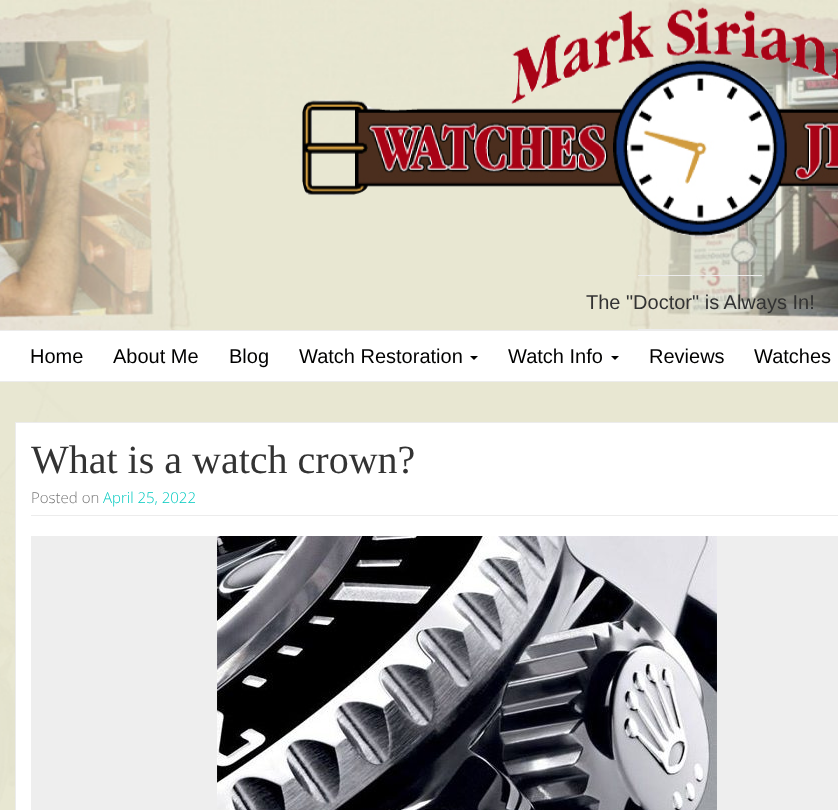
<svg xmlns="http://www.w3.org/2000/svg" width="838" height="810">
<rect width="100%" height="100%" fill="#fff"/>
<image x="0" y="382" width="838" height="428" href="media/1.png"/>
<image x="0" y="0" width="838" height="330" href="media/2.png"/>
<image x="301" y="7" width="537" height="230" href="media/3.png"/>
<rect x="638" y="275" width="124" height="1" fill="#ececec"/>
<text x="586" y="309" style="font-family:Liberation Sans;font-size:20px;fill:#333">The "Doctor" is Always In!</text>
<rect x="638" y="329" width="124" height="1" fill="#ececec"/>
<rect y="330" width="838" height="1" fill="#ececec"/>
<rect y="381" width="838" height="1" fill="#ececec"/>
<text x="30" y="363" style="font-family:Liberation Sans;font-size:20px;fill:#010100">Home</text>
<text x="113" y="363" style="font-family:Liberation Sans;font-size:20px;fill:#010100">About Me</text>
<text x="229" y="363" style="font-family:Liberation Sans;font-size:20px;fill:#010100">Blog</text>
<text x="299" y="363" style="font-family:Liberation Sans;font-size:20px;fill:#010100">Watch Restoration</text>
<path d="M470 356h8l-4 4z" fill="#010100"/>
<text x="508" y="363" style="font-family:Liberation Sans;font-size:20px;fill:#010100">Watch Info</text>
<path d="M611 356h8l-4 4z" fill="#010100"/>
<text x="649" y="363" style="font-family:Liberation Sans;font-size:20px;fill:#010100">Reviews</text>
<text x="754" y="363" style="font-family:Liberation Sans;font-size:20px;fill:#010100">Watches</text>
<rect x="15.5" y="422.5" width="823" height="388" fill="#fff" stroke="#ececec"/>
<text x="31" y="473" style="font-family:Liberation Serif;font-size:40px;fill:#333">What is a watch crown?</text>
<rect x="31" y="515" width="807" height="1" fill="#ececec"/>
<text x="31" y="503" style="font-family:Open Sans;font-size:15px;font-weight:300;fill:#777">Posted on</text>
<text x="103" y="503" style="font-family:Open Sans;font-size:15px;font-weight:300;fill:#00c9bf">April 25, 2022</text>
<rect x="31" y="536" width="807" height="274" fill="#eee"/>
<image x="217" y="536" width="500" height="274" href="media/4.png"/>
</svg>
